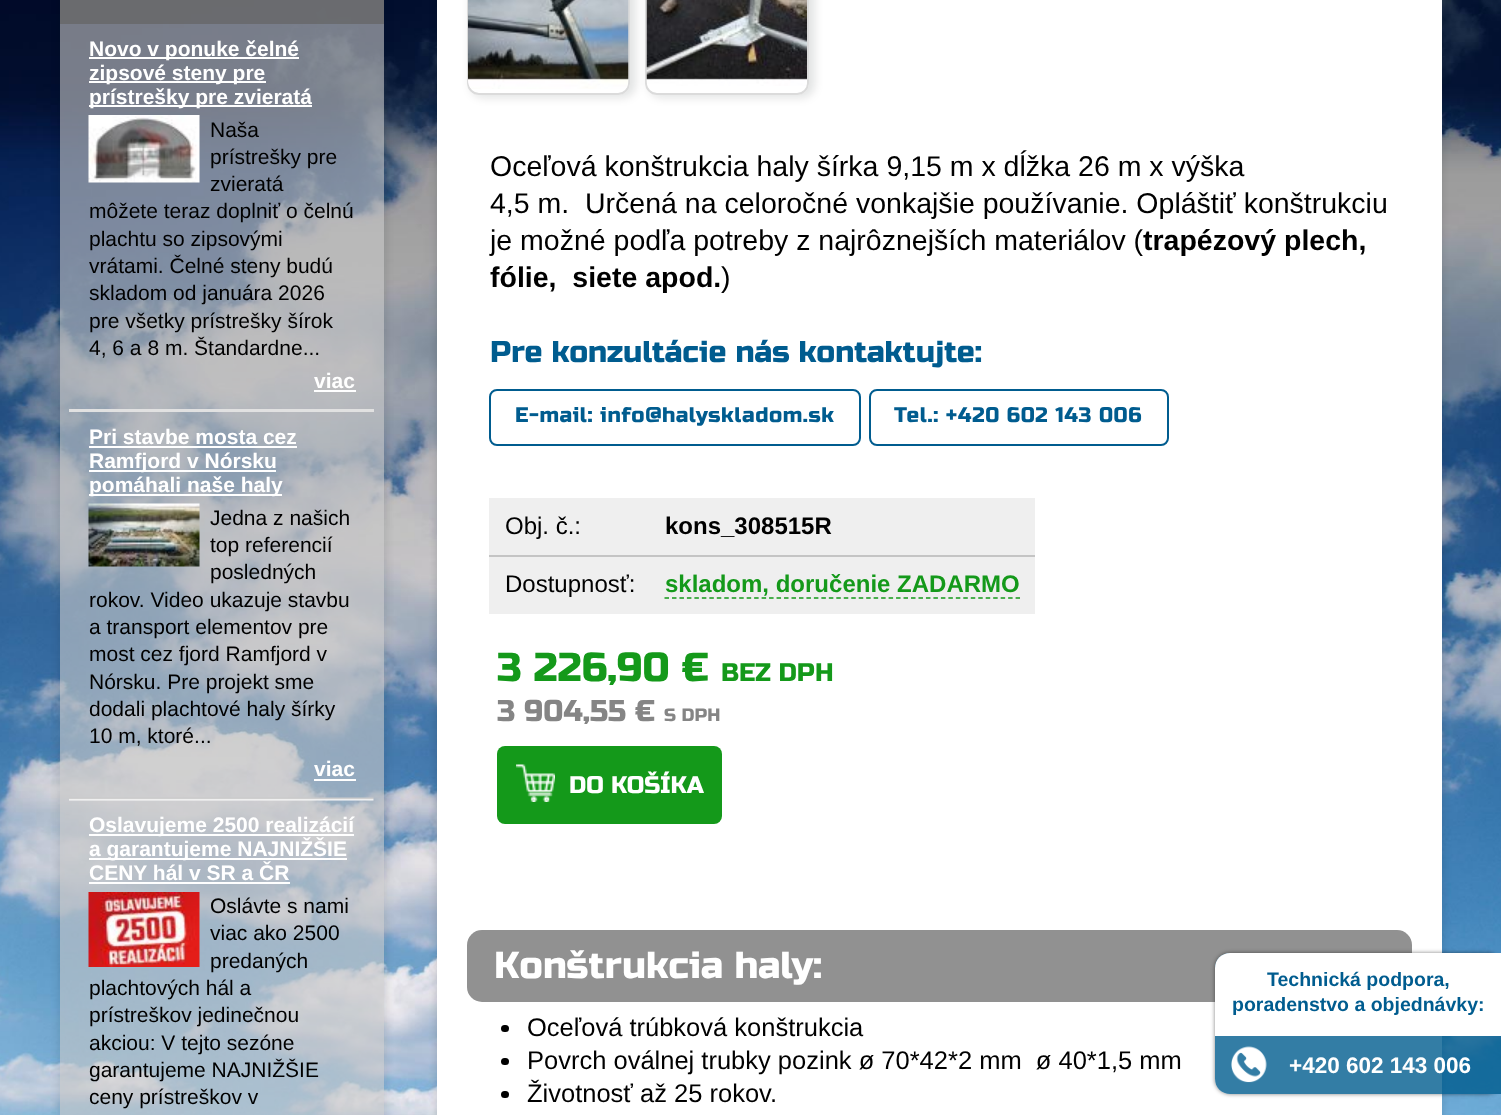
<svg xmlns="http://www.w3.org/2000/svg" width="1501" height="1115">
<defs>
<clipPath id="clip1"><path d="M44 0h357v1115h-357zm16-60h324v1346h-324z" clip-rule="evenodd"/></clipPath>
<clipPath id="clip2"><path d="M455 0h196v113h-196zm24-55h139c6.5 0 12 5.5 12 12v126c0 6.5-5.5 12-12 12h-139c-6.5 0-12-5.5-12-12v-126c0-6.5 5.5-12 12-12z" clip-rule="evenodd"/></clipPath>
<clipPath id="clip3"><path d="M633 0h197v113h-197zm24-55h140c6.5 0 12 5.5 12 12v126c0 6.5-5.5 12-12 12h-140c-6.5 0-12-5.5-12-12v-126c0-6.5 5.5-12 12-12z" clip-rule="evenodd"/></clipPath>
<clipPath id="clip4"><path d="M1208 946h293v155h-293zm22 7h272v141h-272c-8.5 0-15-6.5-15-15v-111c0-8.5 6.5-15 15-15z" clip-rule="evenodd"/></clipPath>
</defs>
<rect width="100%" height="100%" fill="#fff"/>
<image x="0" y="0" width="1501" height="1115" href="media/1.png"/>
<g clip-path="url(#clip1)">
<rect x="59" y="-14" width="327" height="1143" fill="#0405051c" filter="blur(4.5px)"/>
</g>
<rect x="60" width="324" height="1115" fill="#c8c8c899"/>
<rect x="60" width="324" height="24" fill="#646464b3"/>
<rect x="69" y="409" width="305" height="3" fill="#e1e1e1"/>
<rect x="89" y="57" width="210" height="2" fill="#fff"/>
<text x="89" y="56" style="font-family:Liberation Sans;font-size:21px;font-weight:bold;fill:#fff">Novo v ponuke čelné</text>
<rect x="89" y="81" width="177" height="2" fill="#fff"/>
<text x="89" y="80" style="font-family:Liberation Sans;font-size:21px;font-weight:bold;fill:#fff">zipsové steny pre</text>
<rect x="89" y="105" width="223" height="2" fill="#fff"/>
<text x="89" y="104" style="font-family:Liberation Sans;font-size:21px;font-weight:bold;fill:#fff">prístrešky pre zvieratá</text>
<image x="88" y="115" width="112" height="68" href="media/2.png"/>
<text x="210" y="137" style="font-family:Liberation Sans;font-size:21px;fill:#000">Naša</text>
<text x="210" y="164" style="font-family:Liberation Sans;font-size:21px;fill:#000">prístrešky pre</text>
<text x="210" y="191" style="font-family:Liberation Sans;font-size:21px;fill:#000">zvieratá</text>
<text x="89" y="218" style="font-family:Liberation Sans;font-size:21px;fill:#000">môžete teraz doplniť o čelnú</text>
<text x="89" y="246" style="font-family:Liberation Sans;font-size:21px;fill:#000">plachtu so zipsovými</text>
<text x="89" y="273" style="font-family:Liberation Sans;font-size:21px;fill:#000">vrátami. Čelné steny budú</text>
<text x="89" y="300" style="font-family:Liberation Sans;font-size:21px;fill:#000">skladom od januára 2026</text>
<text x="89" y="328" style="font-family:Liberation Sans;font-size:21px;fill:#000">pre všetky prístrešky šírok</text>
<text x="89" y="355" style="font-family:Liberation Sans;font-size:21px;fill:#000">4, 6 a 8 m. Štandardne...</text>
<text x="314" y="388" style="font-family:Liberation Sans;font-size:21px;font-weight:bold;fill:#fff">viac</text>
<rect x="314" y="390" width="42" height="2" fill="#fff"/>
<image x="69" y="797" width="305" height="4" href="media/3.png"/>
<text x="89" y="444" style="font-family:Liberation Sans;font-size:21px;font-weight:bold;fill:#fff">Pri stavbe mosta cez</text>
<rect x="89" y="446" width="208" height="2" fill="#fff"/>
<rect x="89" y="470" width="187" height="2" fill="#fff"/>
<text x="89" y="468" style="font-family:Liberation Sans;font-size:21px;font-weight:bold;fill:#fff">Ramfjord v Nórsku</text>
<rect x="89" y="494" width="193" height="2" fill="#fff"/>
<text x="89" y="492" style="font-family:Liberation Sans;font-size:21px;font-weight:bold;fill:#fff">pomáhali naše haly</text>
<image x="88" y="503" width="112" height="64" href="media/4.png"/>
<text x="210" y="525" style="font-family:Liberation Sans;font-size:21px;fill:#000">Jedna z našich</text>
<text x="210" y="552" style="font-family:Liberation Sans;font-size:21px;fill:#000">top referencií</text>
<text x="210" y="579" style="font-family:Liberation Sans;font-size:21px;fill:#000">posledných</text>
<text x="89" y="607" style="font-family:Liberation Sans;font-size:21px;fill:#000">rokov. Video ukazuje stavbu</text>
<text x="89" y="634" style="font-family:Liberation Sans;font-size:21px;fill:#000">a transport elementov pre</text>
<text x="89" y="661" style="font-family:Liberation Sans;font-size:21px;fill:#000">most cez fjord Ramfjord v</text>
<text x="89" y="689" style="font-family:Liberation Sans;font-size:21px;fill:#000">Nórsku. Pre projekt sme</text>
<text x="89" y="716" style="font-family:Liberation Sans;font-size:21px;fill:#000">dodali plachtové haly šírky</text>
<text x="89" y="743" style="font-family:Liberation Sans;font-size:21px;fill:#000">10 m, ktoré...</text>
<text x="314" y="776" style="font-family:Liberation Sans;font-size:21px;font-weight:bold;fill:#fff">viac</text>
<rect x="314" y="779" width="42" height="2" fill="#fff"/>
<rect x="89" y="834" width="265" height="2" fill="#fff"/>
<text x="89" y="832" style="font-family:Liberation Sans;font-size:21px;font-weight:bold;fill:#fff">Oslavujeme 2500 realizácií</text>
<rect x="89" y="858" width="258" height="2" fill="#fff"/>
<text x="89" y="856" style="font-family:Liberation Sans;font-size:21px;font-weight:bold;fill:#fff">a garantujeme NAJNIŽŠIE</text>
<text x="89" y="880" style="font-family:Liberation Sans;font-size:21px;font-weight:bold;fill:#fff">CENY hál v SR a ČR</text>
<rect x="89" y="882" width="201" height="2" fill="#fff"/>
<image x="88" y="892" width="112" height="75" href="media/5.png"/>
<text x="210" y="913" style="font-family:Liberation Sans;font-size:21px;fill:#000">Oslávte s nami</text>
<text x="210" y="940" style="font-family:Liberation Sans;font-size:21px;fill:#000">viac ako 2500</text>
<text x="210" y="968" style="font-family:Liberation Sans;font-size:21px;fill:#000">predaných</text>
<text x="89" y="995" style="font-family:Liberation Sans;font-size:21px;fill:#000">plachtových hál a</text>
<text x="89" y="1022" style="font-family:Liberation Sans;font-size:21px;fill:#000">prístreškov jedinečnou</text>
<text x="89" y="1050" style="font-family:Liberation Sans;font-size:21px;fill:#000">akciou: V tejto sezóne</text>
<text x="89" y="1077" style="font-family:Liberation Sans;font-size:21px;fill:#000">garantujeme NAJNIŽŠIE</text>
<text x="89" y="1104" style="font-family:Liberation Sans;font-size:21px;fill:#000">ceny prístreškov v</text>
<rect x="435" y="-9" width="1008" height="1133" fill="#0405051a" filter="blur(3px)"/>
<rect x="437" width="1005" height="1115" fill="#fff"/>
<g clip-path="url(#clip2)">
<rect x="470" y="-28" width="166" height="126" rx="14" fill="#0405051c" filter="blur(4.5px)"/>
</g>
<rect x="468" y="-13" width="161" height="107" rx="11" fill="none" stroke="#dbdbdb" stroke-width="2"/>
<image x="468" y="0" width="161" height="89" href="media/6.png"/>
<g clip-path="url(#clip3)">
<rect x="648" y="-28" width="167" height="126" rx="14" fill="#0405051c" filter="blur(4.5px)"/>
</g>
<rect x="646" y="-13" width="162" height="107" rx="11" fill="none" stroke="#dbdbdb" stroke-width="2"/>
<image x="646" y="0" width="161" height="86" href="media/7.png"/>
<text x="490" y="176" style="font-family:Liberation Sans;font-size:28.5px;fill:#000">Oceľová konštrukcia haly šírka 9,15 m x dĺžka 26 m x výška</text>
<text x="490" y="213" style="font-family:Liberation Sans;font-size:28.5px;fill:#000" xml:space="preserve">4,5 m.  Určená na celoročné vonkajšie používanie. Opláštiť konštrukciu</text>
<text x="490" y="250" style="font-family:Liberation Sans;font-size:28.5px;fill:#000">je možné podľa potreby z najrôznejších materiálov (</text>
<text x="1143" y="250" style="font-family:Liberation Sans;font-size:28.5px;font-weight:bold;fill:#000">trapézový plech,</text>
<text x="490" y="287" style="font-family:Liberation Sans;font-size:28.5px;font-weight:bold;fill:#000" xml:space="preserve">fólie,  siete apod.</text>
<text x="721" y="287" style="font-family:Liberation Sans;font-size:28.5px;fill:#000">)</text>
<text x="490" y="362" style="font-family:Russo One;font-size:30px;fill:#005c8f">Pre konzultácie nás kontaktujte:</text>
<rect x="490" y="390" width="370" height="55" rx="7" fill="none" stroke="#005c8f" stroke-width="2"/>
<text x="515" y="422" style="font-family:Russo One;font-size:21px;letter-spacing:0.6px;fill:#005c8f">E-mail: info@halyskladom.sk</text>
<rect x="870" y="390" width="298" height="55" rx="7" fill="none" stroke="#005c8f" stroke-width="2"/>
<text x="894" y="422" style="font-family:Russo One;font-size:21px;letter-spacing:0.6px;fill:#005c8f">Tel.: +420 602 143 006</text>
<rect x="489" y="498" width="546" height="116" fill="#efefef"/>
<rect x="489" y="555" width="546" height="2" fill="#c4c4c4"/>
<text x="505" y="534" style="font-family:Liberation Sans;font-size:24px;fill:#000">Obj. č.:</text>
<text x="665" y="534" style="font-family:Liberation Sans;font-size:24px;font-weight:bold;fill:#000">kons_308515R</text>
<text x="505" y="592" style="font-family:Liberation Sans;font-size:24px;fill:#000">Dostupnosť:</text>
<text x="665" y="592" style="font-family:Liberation Sans;font-size:24px;font-weight:bold;fill:#14991a">skladom, doručenie ZADARMO</text>
<path d="M664.5 598h355.5" fill="none" stroke="#14991a" stroke-width="1.5" stroke-dasharray="4.5 2.97"/>
<text x="497" y="681" style="font-family:Russo One;font-size:40.5px;fill:#14991a">3 226,90 €</text>
<text x="721" y="681" style="font-family:Russo One;font-size:25.5px;fill:#14991a">BEZ DPH</text>
<text x="497" y="721" style="font-family:Russo One;font-size:30px;fill:#858585">3 904,55 €</text>
<text x="664" y="721" style="font-family:Russo One;font-size:18px;fill:#858585">S DPH</text>
<rect x="497" y="746" width="225" height="78" rx="8" fill="#14991a"/>
<image x="516" y="764" width="39" height="38" href="media/8.png"/>
<text x="569" y="793" style="font-family:Russo One;font-size:24px;fill:#fff">DO KOŠÍKA</text>
<rect x="467" y="930" width="945" height="72" rx="15" fill="#919191"/>
<text x="494" y="978" style="font-family:Russo One;font-size:37.5px;fill:#fff">Konštrukcia haly:</text>
<rect x="501" y="1025" width="8" height="7" rx="3.5" fill="#000"/>
<text x="527" y="1036" style="font-family:Liberation Sans;font-size:25.5px;fill:#000">Oceľová trúbková konštrukcia</text>
<rect x="501" y="1058" width="8" height="7" rx="3.5" fill="#000"/>
<text x="527" y="1069" style="font-family:Liberation Sans;font-size:25.5px;fill:#000" xml:space="preserve">Povrch oválnej trubky pozink ø 70*42*2 mm  ø 40*1,5 mm</text>
<rect x="501" y="1091" width="8" height="7" rx="3.5" fill="#000"/>
<text x="527" y="1102" style="font-family:Liberation Sans;font-size:25.5px;fill:#000">Životnosť až 25 rokov.</text>
<g clip-path="url(#clip4)">
<rect x="1215" y="953" width="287" height="141" rx="15" fill="#0000007d" filter="blur(2px)"/>
</g>
<path d="M1230 953h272v141h-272c-8.5 0-15-6.5-15-15v-111c0-8.5 6.5-15 15-15z" fill="#005c8fcc"/>
<path d="M1230 953h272v82h-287v-67c0-8.5 6.5-15 15-15z" fill="#fff"/>
<rect x="1215" y="1035" width="286" height="1" fill="#fff"/>
<text x="1267" y="986" style="font-family:Liberation Sans;font-size:19.5px;font-weight:bold;fill:#005c8f">Technická podpora,</text>
<text x="1232" y="1011" style="font-family:Liberation Sans;font-size:19.5px;font-weight:bold;fill:#005c8f">poradenstvo a objednávky:</text>
<image x="1231" y="1046" width="36" height="37" href="media/9.png"/>
<text x="1289" y="1073" style="font-family:Liberation Sans;font-size:22.5px;font-weight:bold;fill:#fff">+420 602 143 006</text>
</svg>
